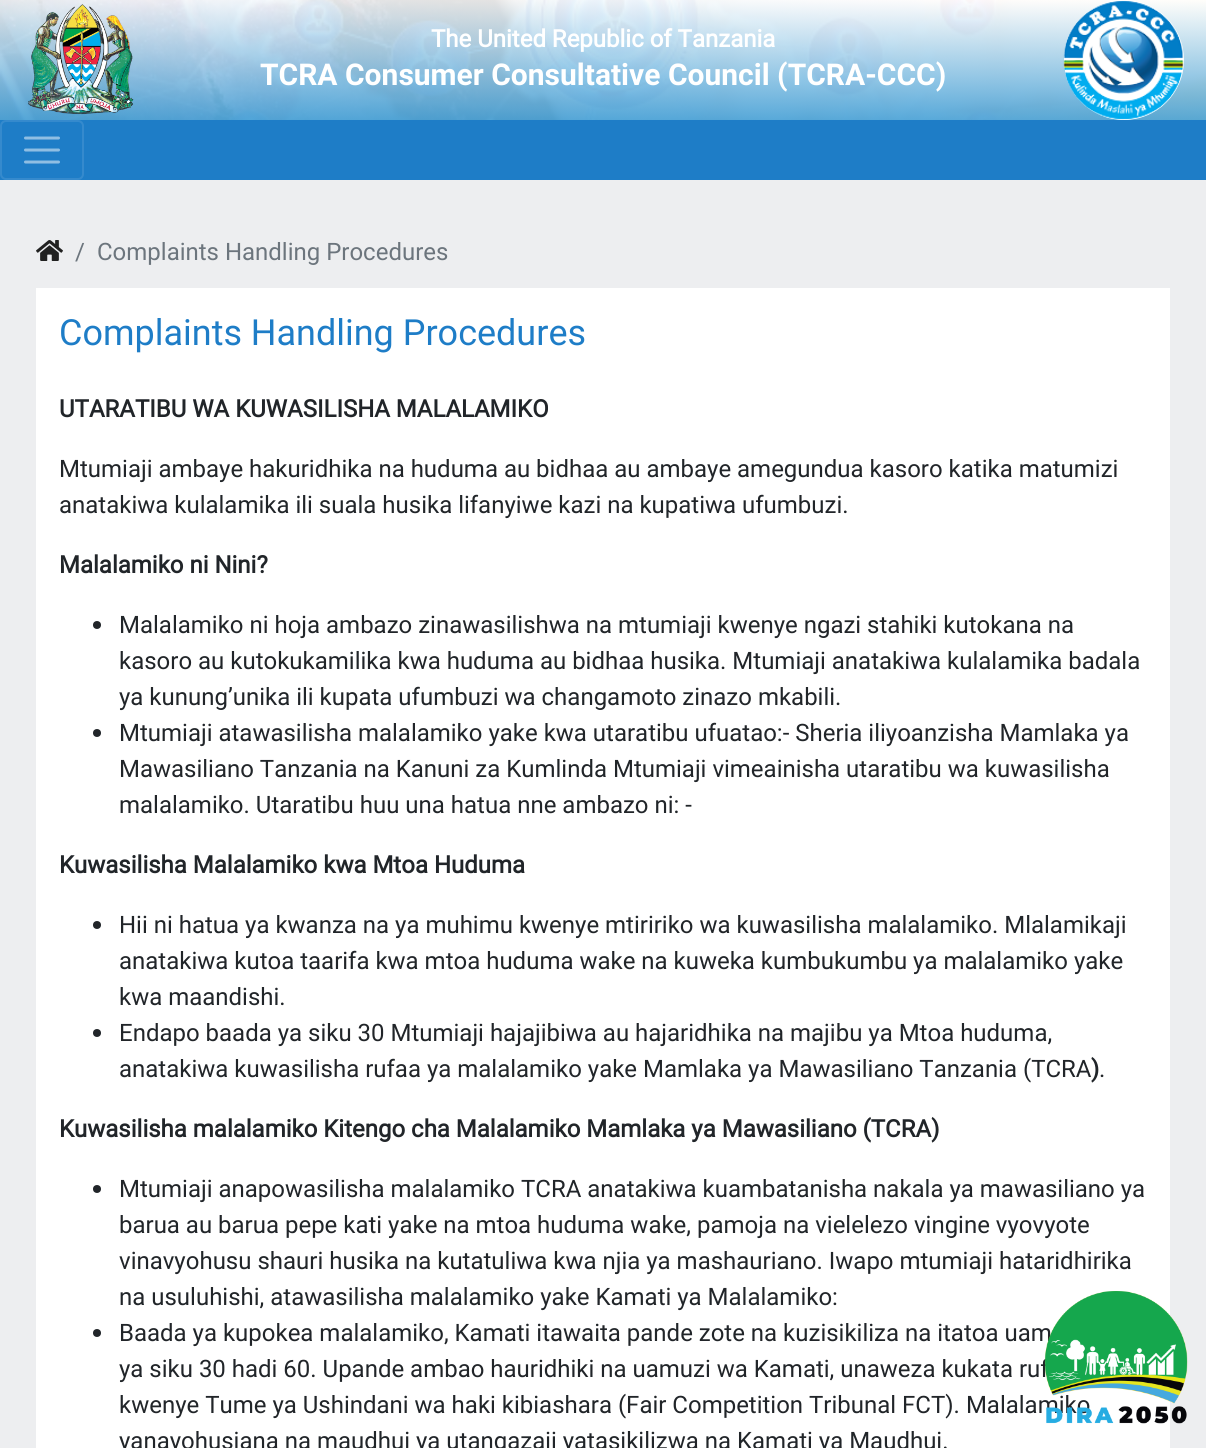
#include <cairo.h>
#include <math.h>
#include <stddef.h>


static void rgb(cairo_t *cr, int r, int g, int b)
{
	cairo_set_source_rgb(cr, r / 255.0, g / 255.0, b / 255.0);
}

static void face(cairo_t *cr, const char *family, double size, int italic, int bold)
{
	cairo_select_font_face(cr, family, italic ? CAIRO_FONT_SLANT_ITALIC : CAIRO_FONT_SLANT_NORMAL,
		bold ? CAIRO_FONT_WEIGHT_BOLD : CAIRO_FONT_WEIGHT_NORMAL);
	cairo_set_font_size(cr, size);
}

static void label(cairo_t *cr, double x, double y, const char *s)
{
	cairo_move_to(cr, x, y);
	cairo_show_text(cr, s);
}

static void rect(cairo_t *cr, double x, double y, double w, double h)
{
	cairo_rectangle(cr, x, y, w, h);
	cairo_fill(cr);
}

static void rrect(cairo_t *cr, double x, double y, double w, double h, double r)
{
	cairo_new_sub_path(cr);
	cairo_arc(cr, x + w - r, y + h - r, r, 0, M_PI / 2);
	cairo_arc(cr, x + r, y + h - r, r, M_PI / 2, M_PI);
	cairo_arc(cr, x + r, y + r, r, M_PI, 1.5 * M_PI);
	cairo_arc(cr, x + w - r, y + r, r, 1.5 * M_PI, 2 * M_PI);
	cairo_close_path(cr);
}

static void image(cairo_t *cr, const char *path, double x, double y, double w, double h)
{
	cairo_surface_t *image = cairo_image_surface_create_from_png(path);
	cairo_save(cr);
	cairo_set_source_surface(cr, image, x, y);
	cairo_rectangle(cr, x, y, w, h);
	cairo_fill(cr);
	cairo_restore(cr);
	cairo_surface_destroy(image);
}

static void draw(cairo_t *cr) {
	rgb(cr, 237, 238, 240);
	cairo_paint(cr);
	image(cr, "image0.png", 0, 0, 1206, 120);
	image(cr, "image1.png", 28, 4, 106, 111);
	face(cr, "Roboto", 24, 0, 1);
	rgb(cr, 255, 255, 255);
	label(cr, 431, 47, "The United Republic of Tanzania");
	face(cr, "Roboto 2", 30, 0, 1);
	label(cr, 260, 85, "TCRA Consumer Consultative Council (TCRA-CCC)");
	cairo_new_path(cr);
	cairo_arc(cr, 1124, 60, 60, 0, 2 * M_PI);
	cairo_fill(cr);
	image(cr, "image2.png", 1063, 0, 121, 120);
	rgb(cr, 30, 125, 199);
	rect(cr, 0, 120, 1206, 60);
	rrect(cr, 1, 121, 82, 58, 5);
	rgb(cr, 53, 138, 205);
	cairo_stroke(cr);
	cairo_new_path(cr);
	cairo_move_to(cr, 25.5, 138);
	cairo_line_to(cr, 58.5, 138);
	cairo_move_to(cr, 25.5, 150);
	cairo_line_to(cr, 58.5, 150);
	cairo_move_to(cr, 25.5, 162);
	cairo_line_to(cr, 58.5, 162);
	rgb(cr, 143, 190, 227);
	cairo_set_line_width(cr, 3);
	cairo_set_line_cap(cr, CAIRO_LINE_CAP_ROUND);
	cairo_stroke(cr);
	image(cr, "image3.png", 36, 240, 27, 21);
	face(cr, "Roboto", 24, 0, 0);
	rgb(cr, 108, 117, 125);
	label(cr, 75, 260, "/");
	label(cr, 97, 260, "Complaints Handling Procedures");
	rgb(cr, 255, 255, 255);
	rect(cr, 36, 288, 1134, 1160);
	face(cr, "Roboto", 36, 0, 0);
	rgb(cr, 30, 125, 199);
	label(cr, 59, 345, "Complaints Handling Procedures");
	face(cr, "Roboto", 24, 0, 1);
	rgb(cr, 33, 37, 41);
	label(cr, 59, 417, "UTARATIBU WA KUWASILISHA MALALAMIKO");
	face(cr, "Roboto", 24, 0, 0);
	label(cr, 59, 477, "Mtumiaji ambaye hakuridhika na huduma au bidhaa au ambaye amegundua kasoro katika matumizi");
	label(cr, 59, 513, "anatakiwa kulalamika ili suala husika lifanyiwe kazi na kupatiwa ufumbuzi.");
	face(cr, "Roboto", 24, 0, 1);
	label(cr, 59, 573, "Malalamiko ni Nini?");
	cairo_new_path(cr);
	cairo_arc(cr, 97, 625, 4, 0, 2 * M_PI);
	cairo_fill(cr);
	face(cr, "Roboto", 24, 0, 0);
	label(cr, 119, 633, "Malalamiko ni hoja ambazo zinawasilishwa na mtumiaji kwenye ngazi stahiki kutokana na");
	label(cr, 119, 669, "kasoro au kutokukamilika kwa huduma au bidhaa husika. Mtumiaji anatakiwa kulalamika badala");
	label(cr, 119, 705, "ya kunung’unika ili kupata ufumbuzi wa changamoto zinazo mkabili.");
	cairo_new_path(cr);
	cairo_arc(cr, 97, 733, 4, 0, 2 * M_PI);
	cairo_fill(cr);
	label(cr, 119, 741, "Mtumiaji atawasilisha malalamiko yake kwa utaratibu ufuatao:- Sheria iliyoanzisha Mamlaka ya");
	label(cr, 119, 777, "Mawasiliano Tanzania na Kanuni za Kumlinda Mtumiaji vimeainisha utaratibu wa kuwasilisha");
	label(cr, 119, 813, "malalamiko. Utaratibu huu una hatua nne ambazo ni: -");
	face(cr, "Roboto", 24, 0, 1);
	label(cr, 59, 873, "Kuwasilisha Malalamiko kwa Mtoa Huduma");
	cairo_new_path(cr);
	cairo_arc(cr, 97, 925, 4, 0, 2 * M_PI);
	cairo_fill(cr);
	face(cr, "Roboto", 24, 0, 0);
	label(cr, 119, 933, "Hii ni hatua ya kwanza na ya muhimu kwenye mtiririko wa kuwasilisha malalamiko. Mlalamikaji");
	label(cr, 119, 969, "anatakiwa kutoa taarifa kwa mtoa huduma wake na kuweka kumbukumbu ya malalamiko yake");
	label(cr, 119, 1005, "kwa maandishi.");
	cairo_new_path(cr);
	cairo_arc(cr, 97, 1033, 4, 0, 2 * M_PI);
	cairo_fill(cr);
	label(cr, 119, 1041, "Endapo baada ya siku 30 Mtumiaji hajajibiwa au hajaridhika na majibu ya Mtoa huduma,");
	label(cr, 119, 1077, "anatakiwa kuwasilisha rufaa ya malalamiko yake Mamlaka ya Mawasiliano Tanzania (TCRA");
	face(cr, "Roboto", 24, 0, 1);
	label(cr, 1091, 1077, ")");
	face(cr, "Roboto", 24, 0, 0);
	label(cr, 1099, 1077, ".");
	face(cr, "Roboto", 24, 0, 1);
	label(cr, 59, 1137, "Kuwasilisha malalamiko Kitengo cha Malalamiko Mamlaka ya Mawasiliano (TCRA)");
	cairo_new_path(cr);
	cairo_arc(cr, 97, 1189, 4, 0, 2 * M_PI);
	cairo_fill(cr);
	face(cr, "Roboto", 24, 0, 0);
	label(cr, 119, 1197, "Mtumiaji anapowasilisha malalamiko TCRA anatakiwa kuambatanisha nakala ya mawasiliano ya");
	label(cr, 119, 1233, "barua au barua pepe kati yake na mtoa huduma wake, pamoja na vielelezo vingine vyovyote");
	label(cr, 119, 1269, "vinavyohusu shauri husika na kutatuliwa kwa njia ya mashauriano. Iwapo mtumiaji hataridhirika");
	label(cr, 119, 1305, "na usuluhishi, atawasilisha malalamiko yake Kamati ya Malalamiko:");
	cairo_new_path(cr);
	cairo_arc(cr, 97, 1333, 4, 0, 2 * M_PI);
	cairo_fill(cr);
	label(cr, 119, 1341, "Baada ya kupokea malalamiko, Kamati itawaita pande zote na kuzisikiliza na itatoa uam");
	label(cr, 119, 1377, "ya siku 30 hadi 60. Upande ambao hauridhiki na uamuzi wa Kamati, unaweza kukata ruf");
	label(cr, 119, 1413, "kwenye Tume ya Ushindani wa haki kibiashara (Fair Competition Tribunal FCT). Malalamiko");
	label(cr, 119, 1449, "yanayohusiana na maudhui ya utangazaji yatasikilizwa na Kamati ya Maudhui.");
	image(cr, "image4.png", 1044, 1291, 144, 133);
}

int main(void) {
	cairo_surface_t *surface = cairo_image_surface_create(CAIRO_FORMAT_RGB24, 1206, 1448);
	cairo_t *cr = cairo_create(surface);
	cairo_font_options_t *options = cairo_font_options_create();
	cairo_font_options_set_hint_metrics(options, CAIRO_HINT_METRICS_OFF);
	cairo_font_options_set_hint_style(options, CAIRO_HINT_STYLE_NONE);
	cairo_set_font_options(cr, options);
	cairo_set_miter_limit(cr, 4);
	draw(cr);
	cairo_surface_write_to_png(surface, "render.png");
	cairo_font_options_destroy(options);
	cairo_destroy(cr);
	cairo_surface_destroy(surface);
	return 0;
}
